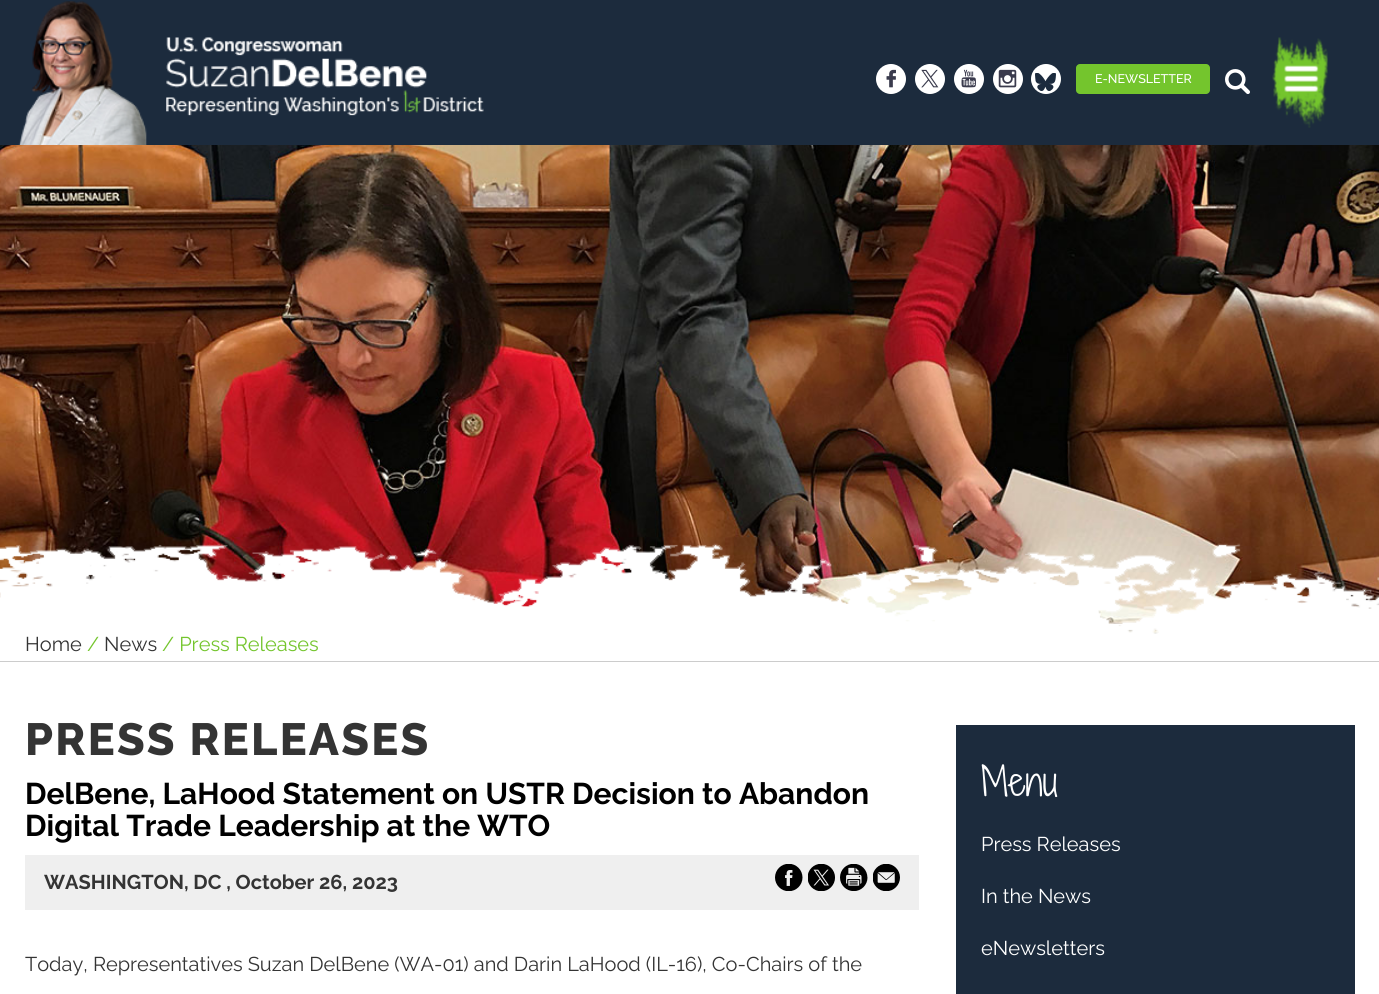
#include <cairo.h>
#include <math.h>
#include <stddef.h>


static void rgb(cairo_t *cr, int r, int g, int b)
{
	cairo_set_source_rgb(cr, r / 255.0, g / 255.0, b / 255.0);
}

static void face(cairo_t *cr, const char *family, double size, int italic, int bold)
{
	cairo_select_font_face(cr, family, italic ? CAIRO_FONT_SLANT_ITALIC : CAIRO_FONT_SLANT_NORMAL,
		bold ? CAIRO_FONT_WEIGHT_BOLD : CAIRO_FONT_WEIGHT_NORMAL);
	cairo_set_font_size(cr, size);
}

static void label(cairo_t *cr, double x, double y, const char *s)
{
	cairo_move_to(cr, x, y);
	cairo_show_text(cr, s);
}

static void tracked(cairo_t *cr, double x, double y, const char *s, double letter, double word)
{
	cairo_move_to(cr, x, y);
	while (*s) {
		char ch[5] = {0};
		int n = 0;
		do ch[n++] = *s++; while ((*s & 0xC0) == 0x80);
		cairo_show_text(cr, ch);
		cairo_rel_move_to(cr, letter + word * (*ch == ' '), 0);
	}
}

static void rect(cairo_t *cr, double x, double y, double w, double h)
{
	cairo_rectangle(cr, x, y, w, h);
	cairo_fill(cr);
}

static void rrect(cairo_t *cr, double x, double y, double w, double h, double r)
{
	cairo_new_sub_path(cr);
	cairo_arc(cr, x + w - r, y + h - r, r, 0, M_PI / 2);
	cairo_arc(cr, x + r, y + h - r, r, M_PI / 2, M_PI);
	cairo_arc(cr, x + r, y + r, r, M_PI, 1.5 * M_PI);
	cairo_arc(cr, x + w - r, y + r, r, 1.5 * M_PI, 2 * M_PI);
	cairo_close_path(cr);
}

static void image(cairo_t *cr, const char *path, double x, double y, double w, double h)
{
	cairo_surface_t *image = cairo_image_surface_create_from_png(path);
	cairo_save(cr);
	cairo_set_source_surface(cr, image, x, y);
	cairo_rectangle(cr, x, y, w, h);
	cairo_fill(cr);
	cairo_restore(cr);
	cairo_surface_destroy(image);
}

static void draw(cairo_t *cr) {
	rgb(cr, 255, 255, 255);
	cairo_paint(cr);
	rgb(cr, 28, 43, 61);
	rect(cr, 0, 0, 1379, 145);
	image(cr, "image0.png", 18, 1, 466, 144);
	rgb(cr, 255, 255, 255);
	cairo_arc(cr, 891, 79, 15, 0, 2 * M_PI);
	cairo_fill(cr);
	image(cr, "image1.png", 886, 69, 10, 19);
	cairo_arc(cr, 930, 79, 15, 0, 2 * M_PI);
	cairo_fill(cr);
	image(cr, "image2.png", 921, 69, 18, 19);
	cairo_arc(cr, 969, 79, 15, 0, 2 * M_PI);
	cairo_fill(cr);
	image(cr, "image3.png", 961, 69, 15, 19);
	cairo_arc(cr, 1008, 79, 15, 0, 2 * M_PI);
	cairo_fill(cr);
	image(cr, "image4.png", 998, 69, 19, 19);
	cairo_arc(cr, 1046, 79, 15, 0, 2 * M_PI);
	cairo_fill(cr);
	image(cr, "image5.png", 1035, 73, 21, 18);
	rgb(cr, 116, 197, 45);
	rrect(cr, 1076, 64, 134, 30, 4);
	cairo_fill(cr);
	face(cr, "Raleway Medium", 12.5, 0, 0);
	rgb(cr, 255, 255, 255);
	label(cr, 1095, 83, "E-NEWSLETTER");
	image(cr, "image6.png", 1225, 69, 25, 25);
	image(cr, "image7.png", 1272, 37, 56, 91);
	rgb(cr, 204, 204, 204);
	rect(cr, 0, 661, 1379, 1);
	image(cr, "image8.png", 0, 145, 1379, 489);
	image(cr, "image9.png", 0, 543, 1379, 107);
	face(cr, "Raleway", 20, 0, 0);
	rgb(cr, 52, 52, 52);
	label(cr, 25, 651, "Home");
	rgb(cr, 116, 197, 45);
	label(cr, 87, 651, "/");
	rgb(cr, 52, 52, 52);
	label(cr, 104, 651, "News");
	rgb(cr, 116, 197, 45);
	label(cr, 162, 651, "/ Press Releases");
	face(cr, "Raleway ExtraBold", 45, 0, 0);
	rgb(cr, 52, 52, 52);
	tracked(cr, 25, 755, "PRESS RELEASES", 2.25, 0);
	face(cr, "Raleway", 30, 0, 1);
	rgb(cr, 0, 0, 0);
	label(cr, 25, 804, "DelBene, LaHood Statement on USTR Decision to Abandon");
	label(cr, 25, 836, "Digital Trade Leadership at the WTO");
	rgb(cr, 239, 239, 239);
	rect(cr, 25, 855, 894, 55);
	face(cr, "Raleway", 20, 0, 1);
	rgb(cr, 52, 52, 52);
	label(cr, 44, 889, "WASHINGTON, DC , October 26, 2023");
	image(cr, "image10.png", 775, 864, 28, 27);
	image(cr, "image11.png", 808, 864, 27, 27);
	image(cr, "image12.png", 840, 864, 28, 27);
	image(cr, "image13.png", 873, 864, 27, 27);
	face(cr, "Raleway", 20, 0, 0);
	label(cr, 25, 971, "Today, Representatives Suzan DelBene (WA-01) and Darin LaHood (IL-16), Co-Chairs of the");
	rgb(cr, 28, 43, 61);
	rect(cr, 956, 725, 399, 269);
	face(cr, "Shadows Into Light Two Light", 37.5, 0, 0);
	rgb(cr, 255, 255, 255);
	label(cr, 981, 796, "Menu");
	face(cr, "Raleway", 20, 0, 0);
	label(cr, 981, 851, "Press Releases");
	label(cr, 981, 903, "In the News");
	label(cr, 981, 955, "eNewsletters");
}

int main(void) {
	cairo_surface_t *surface = cairo_image_surface_create(CAIRO_FORMAT_RGB24, 1379, 994);
	cairo_t *cr = cairo_create(surface);
	cairo_font_options_t *options = cairo_font_options_create();
	cairo_font_options_set_hint_metrics(options, CAIRO_HINT_METRICS_OFF);
	cairo_font_options_set_hint_style(options, CAIRO_HINT_STYLE_NONE);
	cairo_set_font_options(cr, options);
	cairo_set_miter_limit(cr, 4);
	draw(cr);
	cairo_surface_write_to_png(surface, "render.png");
	cairo_font_options_destroy(options);
	cairo_destroy(cr);
	cairo_surface_destroy(surface);
	return 0;
}
